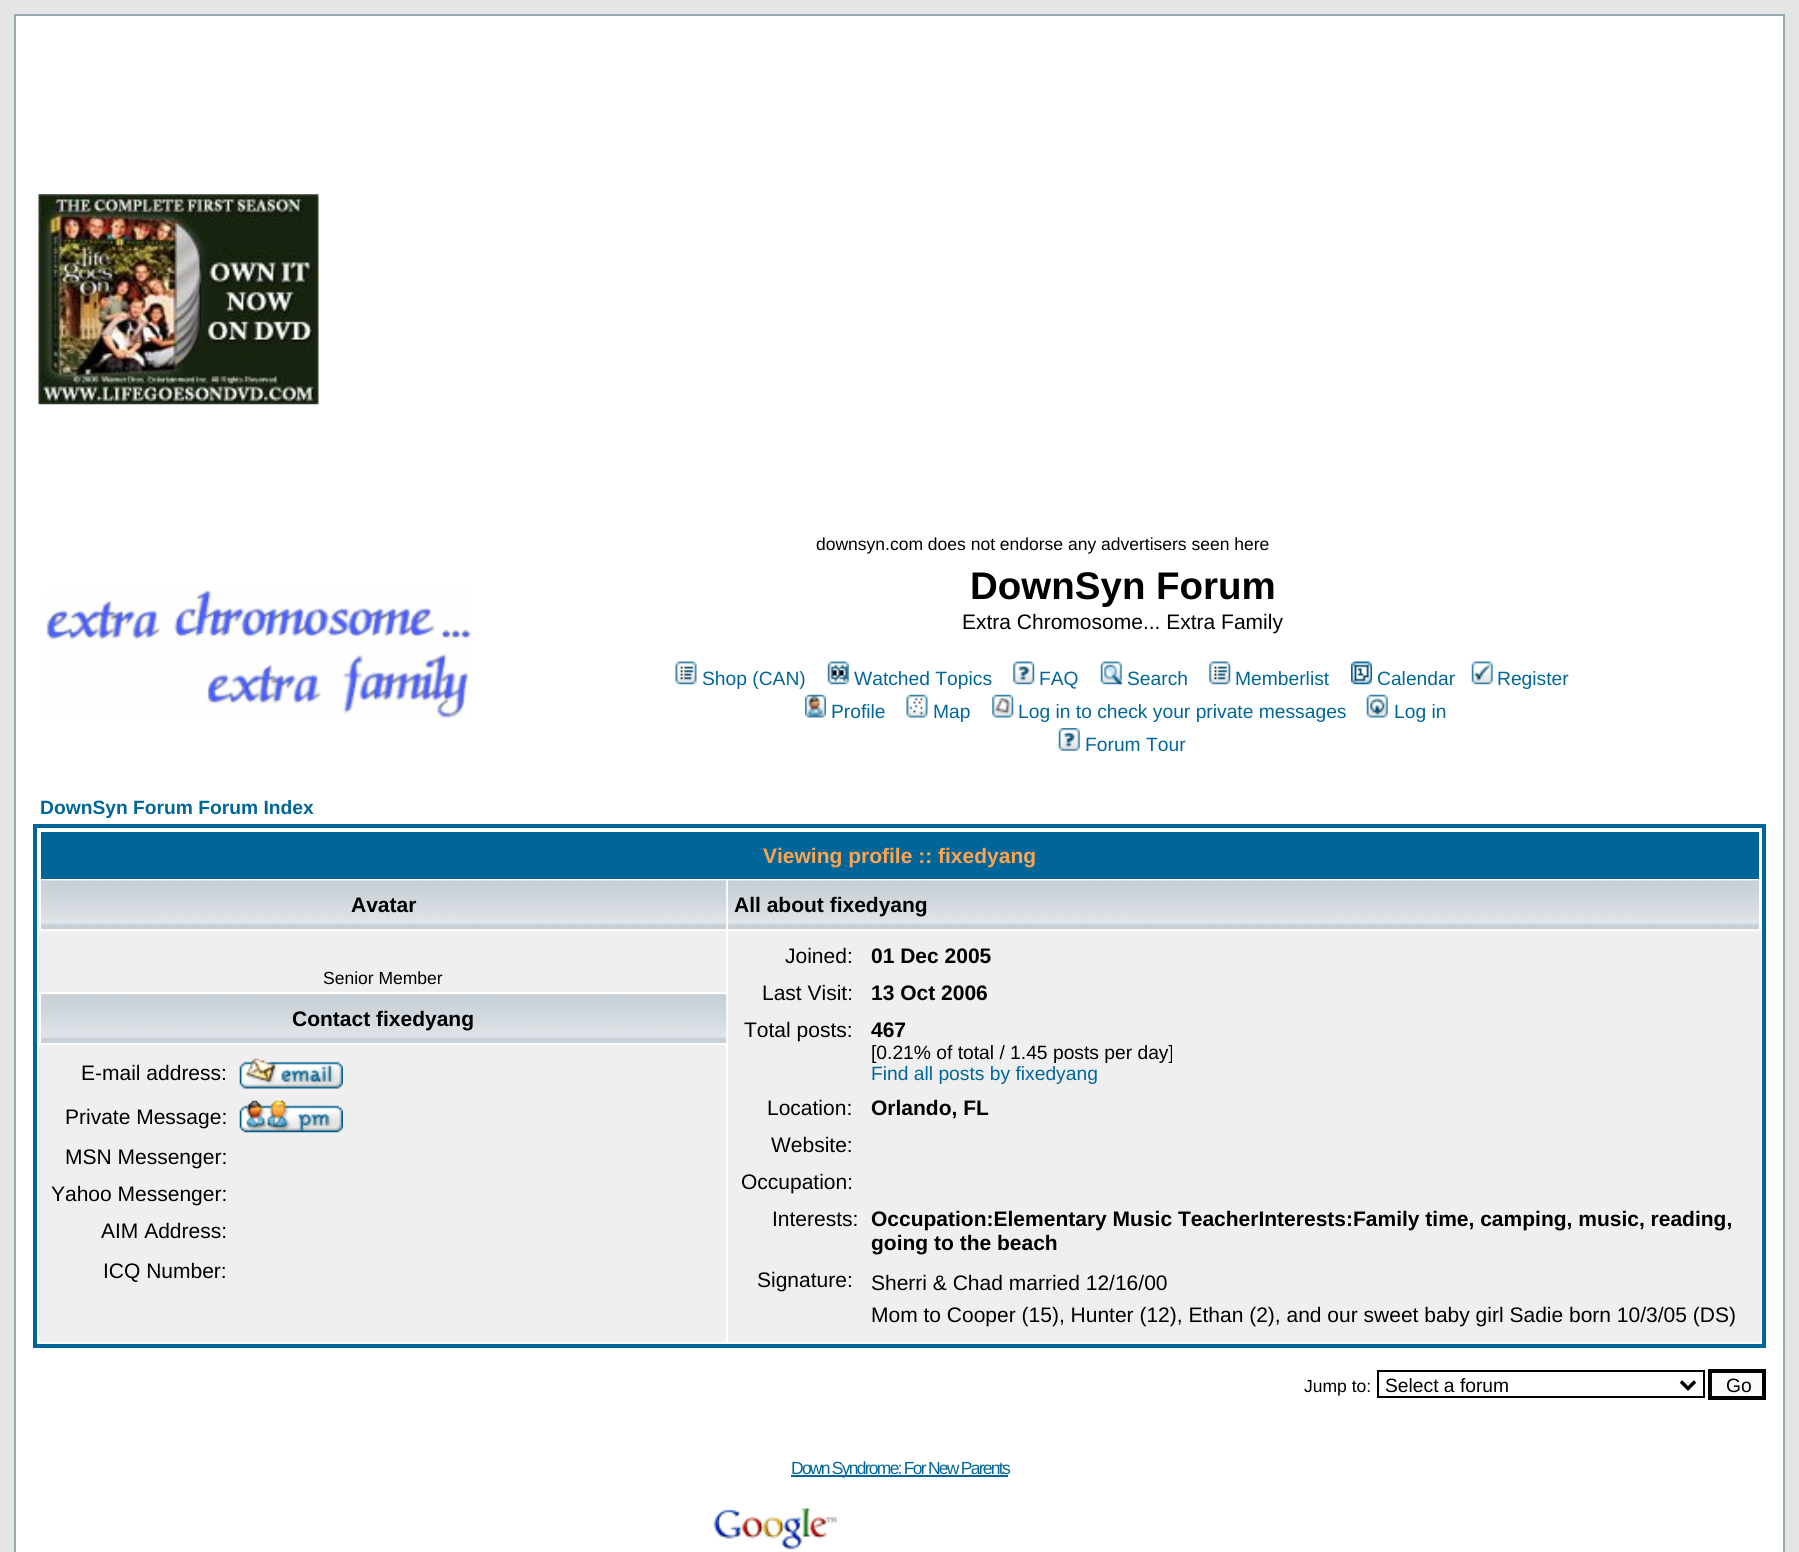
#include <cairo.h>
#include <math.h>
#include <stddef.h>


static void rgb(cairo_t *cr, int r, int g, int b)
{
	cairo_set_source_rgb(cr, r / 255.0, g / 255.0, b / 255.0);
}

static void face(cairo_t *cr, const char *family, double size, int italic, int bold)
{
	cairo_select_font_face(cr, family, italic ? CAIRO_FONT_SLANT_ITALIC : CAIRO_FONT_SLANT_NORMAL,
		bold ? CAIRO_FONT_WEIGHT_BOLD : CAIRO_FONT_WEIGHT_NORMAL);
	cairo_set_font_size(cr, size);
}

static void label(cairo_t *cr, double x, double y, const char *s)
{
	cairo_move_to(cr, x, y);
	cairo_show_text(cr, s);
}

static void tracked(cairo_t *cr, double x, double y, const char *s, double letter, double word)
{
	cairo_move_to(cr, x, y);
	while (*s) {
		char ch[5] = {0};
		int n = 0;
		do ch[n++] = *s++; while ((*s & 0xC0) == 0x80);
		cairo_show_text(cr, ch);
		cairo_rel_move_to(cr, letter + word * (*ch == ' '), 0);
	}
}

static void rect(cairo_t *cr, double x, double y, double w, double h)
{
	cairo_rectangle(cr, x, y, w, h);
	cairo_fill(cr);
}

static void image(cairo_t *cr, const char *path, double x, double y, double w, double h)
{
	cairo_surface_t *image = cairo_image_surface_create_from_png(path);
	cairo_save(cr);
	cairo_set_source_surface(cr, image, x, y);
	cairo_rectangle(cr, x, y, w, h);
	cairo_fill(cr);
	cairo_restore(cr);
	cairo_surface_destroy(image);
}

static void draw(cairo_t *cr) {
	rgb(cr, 229, 229, 229);
	cairo_paint(cr);
	rgb(cr, 255, 255, 255);
	cairo_rectangle(cr, 15, 15, 1769, 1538);
	cairo_fill_preserve(cr);
	rgb(cr, 152, 170, 177);
	cairo_stroke(cr);
	image(cr, "image0.png", 38, 194, 281, 211);
	face(cr, "Liberation Sans", 17.5, 0, 0);
	rgb(cr, 0, 0, 0);
	label(cr, 816, 550, "downsyn.com does not endorse any advertisers seen here");
	image(cr, "image1.png", 46, 589, 426, 130);
	face(cr, "Liberation Sans", 38.5, 0, 1);
	label(cr, 970, 599, "DownSyn Forum");
	face(cr, "Liberation Sans", 21, 0, 0);
	label(cr, 962, 629, "Extra Chromosome... Extra Family");
	image(cr, "image2.png", 675, 661, 22, 24);
	face(cr, "Liberation Sans", 19.25, 0, 0);
	rgb(cr, 0, 102, 153);
	label(cr, 702, 685, "Shop (CAN)");
	image(cr, "image3.png", 827, 661, 22, 24);
	label(cr, 854, 685, "Watched Topics");
	image(cr, "image4.png", 1013, 661, 22, 24);
	label(cr, 1039, 685, "FAQ");
	image(cr, "image5.png", 1100, 661, 22, 24);
	label(cr, 1127, 685, "Search");
	image(cr, "image6.png", 1209, 661, 22, 24);
	label(cr, 1235, 685, "Memberlist");
	image(cr, "image7.png", 1351, 661, 21, 24);
	label(cr, 1377, 685, "Calendar");
	image(cr, "image8.png", 1471, 661, 22, 24);
	label(cr, 1497, 685, "Register");
	image(cr, "image9.png", 805, 694, 21, 24);
	label(cr, 831, 718, "Profile");
	image(cr, "image10.png", 906, 694, 22, 24);
	label(cr, 933, 718, "Map");
	image(cr, "image11.png", 992, 694, 22, 24);
	label(cr, 1018, 718, "Log in to check your private messages");
	image(cr, "image12.png", 1366, 694, 22, 24);
	label(cr, 1394, 718, "Log in");
	image(cr, "image13.png", 1058, 728, 22, 23);
	label(cr, 1085, 751, "Forum Tour");
	face(cr, "Liberation Sans", 19.25, 0, 1);
	label(cr, 40, 814, "DownSyn Forum Forum Index");
	cairo_rectangle(cr, 35, 826, 1729, 520);
	cairo_set_line_width(cr, 4);
	cairo_stroke(cr);
	rect(cr, 41, 832, 1718, 47);
	face(cr, "Liberation Sans", 21, 0, 1);
	rgb(cr, 255, 163, 79);
	label(cr, 763, 863, "Viewing profile :: fixedyang");
	image(cr, "image14.png", 38, 880, 689, 50);
	rgb(cr, 255, 255, 255);
	rect(cr, 39, 880, 2, 49);
	rgb(cr, 0, 0, 0);
	label(cr, 351, 912, "Avatar");
	image(cr, "image15.png", 728, 880, 1033, 50);
	rgb(cr, 255, 255, 255);
	rect(cr, 1759, 880, 2, 49);
	rgb(cr, 0, 0, 0);
	label(cr, 734, 912, "All about fixedyang");
	rgb(cr, 239, 239, 239);
	rect(cr, 39, 931, 687, 61);
	face(cr, "Liberation Sans", 17.5, 0, 0);
	rgb(cr, 0, 0, 0);
	label(cr, 323, 984, "Senior Member");
	rgb(cr, 239, 239, 239);
	rect(cr, 728, 931, 1033, 411);
	face(cr, "Liberation Sans", 21, 0, 0);
	rgb(cr, 0, 0, 0);
	label(cr, 785, 963, "Joined:");
	face(cr, "Liberation Sans", 21, 0, 1);
	label(cr, 871, 963, "01 Dec 2005");
	face(cr, "Liberation Sans", 21, 0, 0);
	label(cr, 762, 1000, "Last Visit:");
	face(cr, "Liberation Sans", 21, 0, 1);
	label(cr, 871, 1000, "13 Oct 2006");
	face(cr, "Liberation Sans", 21, 0, 0);
	label(cr, 744, 1037, "Total posts:");
	face(cr, "Liberation Sans", 21, 0, 1);
	label(cr, 871, 1037, "467");
	face(cr, "Liberation Sans", 19.25, 0, 0);
	label(cr, 871, 1059, "[0.21% of total / 1.45 posts per day]");
	rgb(cr, 0, 102, 153);
	label(cr, 871, 1080, "Find all posts by fixedyang");
	face(cr, "Liberation Sans", 21, 0, 0);
	rgb(cr, 0, 0, 0);
	label(cr, 767, 1115, "Location:");
	face(cr, "Liberation Sans", 21, 0, 1);
	label(cr, 871, 1115, "Orlando, FL");
	face(cr, "Liberation Sans", 21, 0, 0);
	label(cr, 771, 1152, "Website:");
	label(cr, 741, 1189, "Occupation:");
	label(cr, 772, 1226, "Interests:");
	face(cr, "Liberation Sans", 21, 0, 1);
	label(cr, 871, 1226, "Occupation:Elementary Music TeacherInterests:Family time, camping, music, reading,");
	label(cr, 871, 1250, "going to the beach");
	face(cr, "Liberation Sans", 21, 0, 0);
	label(cr, 757, 1287, "Signature:");
	label(cr, 871, 1290, "Sherri & Chad married 12/16/00");
	label(cr, 871, 1322, "Mom to Cooper (15), Hunter (12), Ethan (2), and our sweet baby girl Sadie born 10/3/05 (DS)");
	image(cr, "image16.png", 38, 994, 689, 49);
	rgb(cr, 255, 255, 255);
	rect(cr, 39, 994, 2, 49);
	face(cr, "Liberation Sans", 21, 0, 1);
	rgb(cr, 0, 0, 0);
	label(cr, 292, 1026, "Contact fixedyang");
	rgb(cr, 239, 239, 239);
	rect(cr, 39, 1045, 687, 297);
	face(cr, "Liberation Sans", 21, 0, 0);
	rgb(cr, 0, 0, 0);
	label(cr, 81, 1080, "E-mail address:");
	image(cr, "image17.png", 239, 1058, 104, 31);
	label(cr, 65, 1124, "Private Message:");
	image(cr, "image18.png", 239, 1100, 104, 33);
	label(cr, 65, 1164, "MSN Messenger:");
	label(cr, 51, 1201, "Yahoo Messenger:");
	label(cr, 101, 1238, "AIM Address:");
	label(cr, 103, 1278, "ICQ Number:");
	face(cr, "Liberation Sans", 17.5, 0, 0);
	label(cr, 1304, 1392, "Jump to:");
	cairo_rectangle(cr, 1378, 1371, 326, 26);
	cairo_set_line_width(cr, 2);
	cairo_stroke(cr);
	cairo_new_path(cr);
	cairo_move_to(cr, 1681, 1381.5);
	cairo_line_to(cr, 1688, 1388.5);
	cairo_line_to(cr, 1695, 1381.5);
	cairo_set_line_width(cr, 3.5);
	cairo_stroke(cr);
	face(cr, "Liberation Sans", 19.25, 0, 0);
	label(cr, 1385, 1392, "Select a forum");
	rgb(cr, 250, 250, 250);
	cairo_rectangle(cr, 1710, 1371, 54, 27);
	cairo_fill_preserve(cr);
	rgb(cr, 0, 0, 0);
	cairo_set_line_width(cr, 4);
	cairo_stroke(cr);
	label(cr, 1726, 1392, "Go");
	rgb(cr, 0, 102, 153);
	rect(cr, 791, 1475, 217, 2);
	face(cr, "Liberation Sans", 17.5, 0, 0);
	tracked(cr, 791, 1474, "Down Syndrome: For New Parents", -1.75, 0);
	image(cr, "image19.png", 713, 1508, 124, 42);
}

int main(void) {
	cairo_surface_t *surface = cairo_image_surface_create(CAIRO_FORMAT_RGB24, 1799, 1552);
	cairo_t *cr = cairo_create(surface);
	cairo_font_options_t *options = cairo_font_options_create();
	cairo_font_options_set_hint_metrics(options, CAIRO_HINT_METRICS_OFF);
	cairo_font_options_set_hint_style(options, CAIRO_HINT_STYLE_NONE);
	cairo_set_font_options(cr, options);
	cairo_set_miter_limit(cr, 4);
	draw(cr);
	cairo_surface_write_to_png(surface, "render.png");
	cairo_font_options_destroy(options);
	cairo_destroy(cr);
	cairo_surface_destroy(surface);
	return 0;
}
